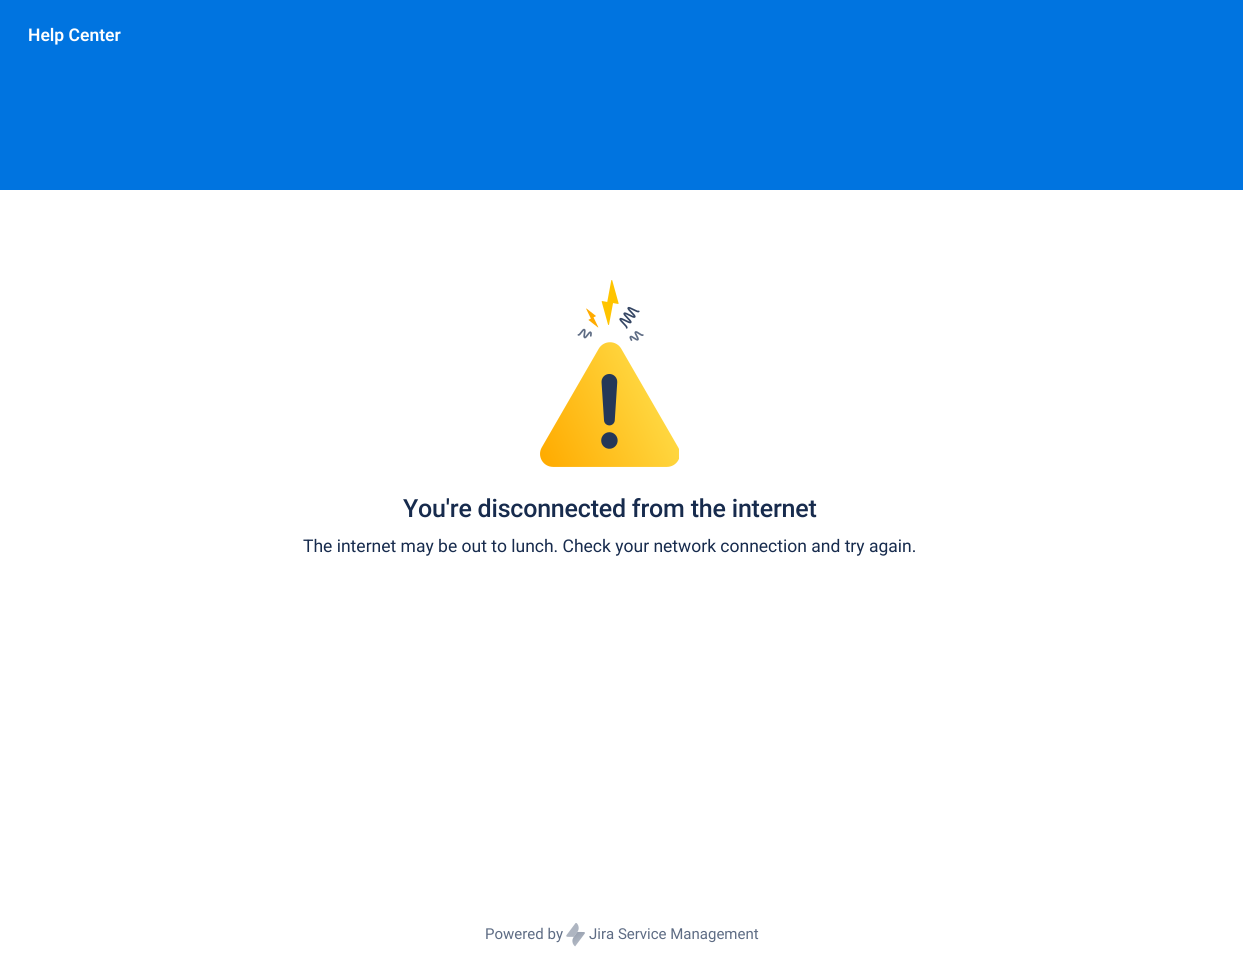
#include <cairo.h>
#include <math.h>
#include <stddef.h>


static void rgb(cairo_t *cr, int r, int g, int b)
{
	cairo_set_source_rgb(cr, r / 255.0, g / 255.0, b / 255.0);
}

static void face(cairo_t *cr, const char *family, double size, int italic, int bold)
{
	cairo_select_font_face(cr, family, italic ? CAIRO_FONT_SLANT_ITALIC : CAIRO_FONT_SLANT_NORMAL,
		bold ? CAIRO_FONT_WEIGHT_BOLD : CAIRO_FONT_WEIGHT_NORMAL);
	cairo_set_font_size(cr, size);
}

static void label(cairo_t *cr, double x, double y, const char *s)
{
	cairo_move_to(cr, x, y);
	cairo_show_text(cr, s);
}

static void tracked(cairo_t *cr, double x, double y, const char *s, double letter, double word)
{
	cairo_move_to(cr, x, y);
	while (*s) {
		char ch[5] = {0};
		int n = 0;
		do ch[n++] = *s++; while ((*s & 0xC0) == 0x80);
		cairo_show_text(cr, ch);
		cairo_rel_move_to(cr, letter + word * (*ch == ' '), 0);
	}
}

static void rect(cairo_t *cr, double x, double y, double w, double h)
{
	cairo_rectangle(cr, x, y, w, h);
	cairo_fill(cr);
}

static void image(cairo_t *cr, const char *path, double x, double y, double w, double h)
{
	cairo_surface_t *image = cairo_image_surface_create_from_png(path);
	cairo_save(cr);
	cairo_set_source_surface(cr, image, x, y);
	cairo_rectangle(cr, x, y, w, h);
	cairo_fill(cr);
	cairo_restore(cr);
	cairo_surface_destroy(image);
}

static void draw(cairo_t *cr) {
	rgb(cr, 255, 255, 255);
	cairo_paint(cr);
	rgb(cr, 0, 116, 224);
	rect(cr, 0, 0, 1243, 190);
	face(cr, "Roboto SemiBold", 17.5, 0, 0);
	rgb(cr, 255, 255, 255);
	label(cr, 28, 41, "Help Center");
	image(cr, "image0.png", 540, 280, 139, 187);
	face(cr, "Roboto Medium", 25, 0, 0);
	rgb(cr, 23, 43, 77);
	tracked(cr, 403, 517, "You're disconnected from the internet", -0.2, 0);
	face(cr, "Roboto", 17.5, 0, 0);
	label(cr, 303, 552, "The internet may be out to lunch. Check your network connection and try again.");
	face(cr, "Roboto", 15, 0, 0);
	rgb(cr, 94, 108, 132);
	label(cr, 485, 939, "Powered by");
	image(cr, "image1.png", 566, 923, 19, 24);
	label(cr, 589, 939, "Jira Service Management");
}

int main(void) {
	cairo_surface_t *surface = cairo_image_surface_create(CAIRO_FORMAT_RGB24, 1243, 974);
	cairo_t *cr = cairo_create(surface);
	cairo_font_options_t *options = cairo_font_options_create();
	cairo_font_options_set_hint_metrics(options, CAIRO_HINT_METRICS_OFF);
	cairo_font_options_set_hint_style(options, CAIRO_HINT_STYLE_NONE);
	cairo_set_font_options(cr, options);
	cairo_set_miter_limit(cr, 4);
	draw(cr);
	cairo_surface_write_to_png(surface, "render.png");
	cairo_font_options_destroy(options);
	cairo_destroy(cr);
	cairo_surface_destroy(surface);
	return 0;
}
